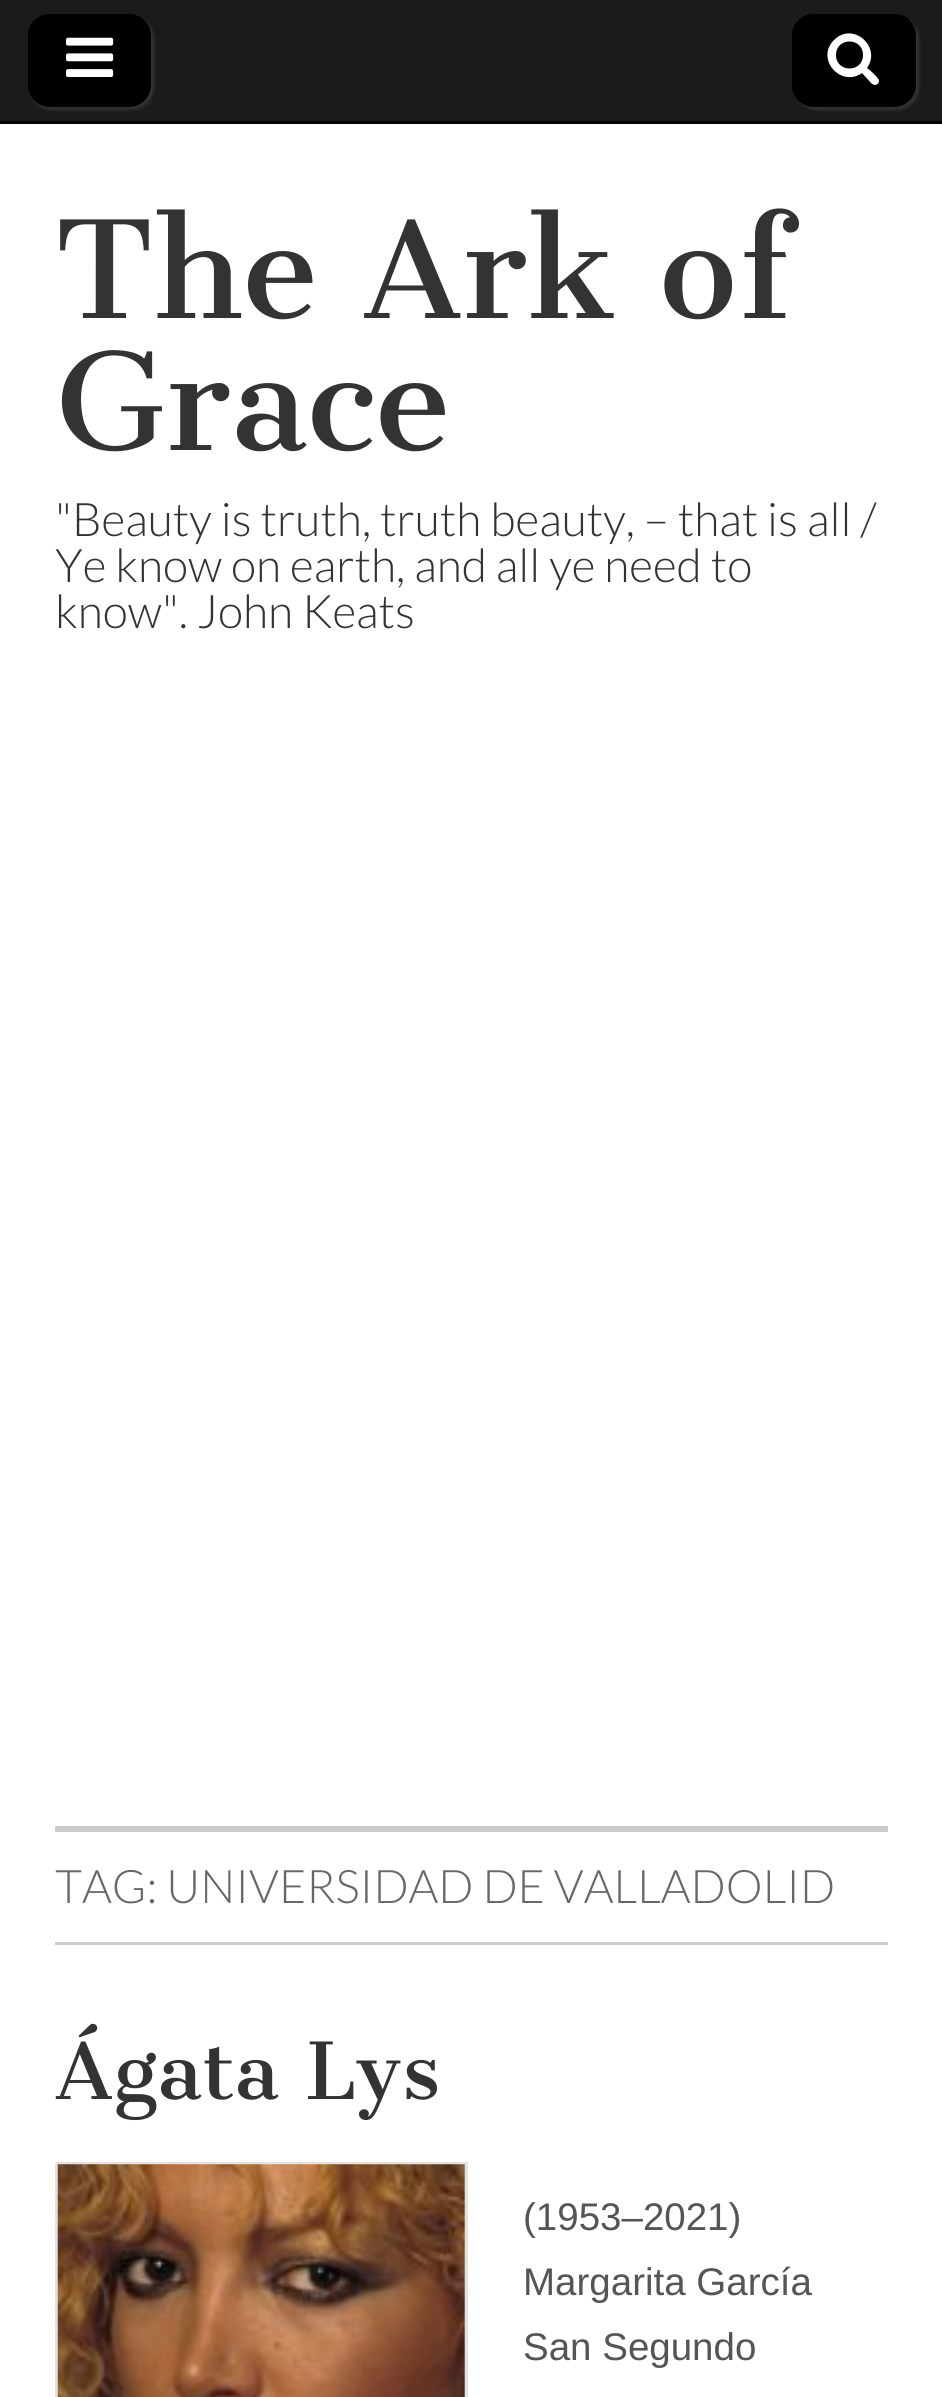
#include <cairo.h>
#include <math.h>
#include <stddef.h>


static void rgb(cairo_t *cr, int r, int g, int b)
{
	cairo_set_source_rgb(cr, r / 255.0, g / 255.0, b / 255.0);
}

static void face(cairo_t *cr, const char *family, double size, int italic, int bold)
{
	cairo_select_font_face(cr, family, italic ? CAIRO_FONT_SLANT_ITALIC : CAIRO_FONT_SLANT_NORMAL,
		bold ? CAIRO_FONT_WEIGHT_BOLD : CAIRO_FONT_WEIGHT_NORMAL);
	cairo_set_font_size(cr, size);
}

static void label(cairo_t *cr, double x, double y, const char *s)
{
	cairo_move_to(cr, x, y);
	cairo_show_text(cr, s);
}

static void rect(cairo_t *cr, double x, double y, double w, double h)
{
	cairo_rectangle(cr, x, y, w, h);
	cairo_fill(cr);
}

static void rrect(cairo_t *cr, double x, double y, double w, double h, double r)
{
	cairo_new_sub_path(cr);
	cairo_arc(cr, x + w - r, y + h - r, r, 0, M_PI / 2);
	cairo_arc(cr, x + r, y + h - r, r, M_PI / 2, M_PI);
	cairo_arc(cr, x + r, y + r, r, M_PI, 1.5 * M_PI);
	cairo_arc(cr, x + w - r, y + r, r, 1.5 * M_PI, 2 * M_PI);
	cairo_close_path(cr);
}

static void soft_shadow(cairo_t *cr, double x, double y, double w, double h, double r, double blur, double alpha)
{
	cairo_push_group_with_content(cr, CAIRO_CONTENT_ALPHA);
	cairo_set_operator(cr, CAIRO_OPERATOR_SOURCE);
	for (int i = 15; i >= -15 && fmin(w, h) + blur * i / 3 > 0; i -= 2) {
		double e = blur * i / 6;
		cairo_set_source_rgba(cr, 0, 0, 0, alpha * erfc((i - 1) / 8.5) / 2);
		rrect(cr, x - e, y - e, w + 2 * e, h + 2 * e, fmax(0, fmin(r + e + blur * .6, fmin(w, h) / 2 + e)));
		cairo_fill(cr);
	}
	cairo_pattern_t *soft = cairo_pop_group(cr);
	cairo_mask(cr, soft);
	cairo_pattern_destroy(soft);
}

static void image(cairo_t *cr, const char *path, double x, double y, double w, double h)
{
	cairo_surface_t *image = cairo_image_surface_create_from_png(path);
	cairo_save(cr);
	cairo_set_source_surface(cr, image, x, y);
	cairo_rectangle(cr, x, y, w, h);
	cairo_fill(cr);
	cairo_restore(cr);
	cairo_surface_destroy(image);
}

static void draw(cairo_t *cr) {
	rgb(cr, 255, 255, 255);
	cairo_paint(cr);
	rgb(cr, 27, 27, 27);
	rect(cr, 0, 0, 942, 121);
	rgb(cr, 0, 0, 0);
	rect(cr, 0, 121, 942, 3);
	rgb(cr, 51, 51, 51);
	soft_shadow(cr, 30, 17, 124, 93, 22, 1.5, 1);
	rgb(cr, 0, 0, 0);
	rrect(cr, 28, 14, 123, 93, 22);
	cairo_fill(cr);
	cairo_new_path(cr);
	cairo_move_to(cr, 52, 16);
	cairo_line_to(cr, 132, 16);
	cairo_curve_to(cr, 136, 16, 140, 17, 143, 19);
	cairo_curve_to(cr, 139, 16, 134, 14, 129, 14);
	cairo_line_to(cr, 50, 14);
	cairo_curve_to(cr, 38, 14, 28, 24, 28, 36);
	cairo_line_to(cr, 28, 85);
	cairo_curve_to(cr, 28, 90, 30, 95, 33, 99);
	cairo_curve_to(cr, 31, 96, 30, 92, 30, 88);
	cairo_line_to(cr, 30, 38);
	cairo_curve_to(cr, 30, 26, 40, 16, 52, 16);
	cairo_close_path(cr);
	cairo_fill(cr);
	image(cr, "image0.png", 66, 37, 48, 40);
	rgb(cr, 51, 51, 51);
	soft_shadow(cr, 795, 17, 124, 93, 22, 1.5, 1);
	rgb(cr, 0, 0, 0);
	rrect(cr, 792, 14, 124, 93, 22);
	cairo_fill(cr);
	cairo_new_path(cr);
	cairo_move_to(cr, 817, 16);
	cairo_line_to(cr, 896, 16);
	cairo_curve_to(cr, 901, 16, 906, 18, 910, 20);
	cairo_curve_to(cr, 906, 16, 900, 14, 894, 14);
	cairo_line_to(cr, 814, 14);
	cairo_curve_to(cr, 802, 14, 792, 24, 792, 36);
	cairo_line_to(cr, 792, 85);
	cairo_curve_to(cr, 792, 92, 795, 98, 800, 102);
	cairo_curve_to(cr, 797, 98, 795, 93, 795, 88);
	cairo_line_to(cr, 795, 38);
	cairo_curve_to(cr, 795, 26, 805, 16, 817, 16);
	cairo_close_path(cr);
	cairo_fill(cr);
	rgb(cr, 255, 255, 255);
	cairo_new_path(cr);
	cairo_move_to(cr, 863, 55);
	cairo_curve_to(cr, 863, 73, 836, 73, 836, 55);
	cairo_curve_to(cr, 836, 37, 863, 37, 863, 55);
	cairo_close_path(cr);
	cairo_move_to(cr, 879, 81);
	cairo_curve_to(cr, 879, 78, 870, 70, 867, 68);
	cairo_curve_to(cr, 882, 47, 853, 21, 834, 40);
	cairo_curve_to(cr, 815, 59, 841, 88, 862, 73);
	cairo_line_to(cr, 872, 84);
	cairo_curve_to(cr, 873, 84, 874, 85, 875, 85);
	cairo_curve_to(cr, 877, 85, 879, 83, 879, 81);
	cairo_close_path(cr);
	cairo_fill(cr);
	face(cr, "Cantata One", 132, 0, 0);
	rgb(cr, 51, 51, 51);
	label(cr, 55, 318, "The Ark of");
	label(cr, 55, 450, "Grace");
	face(cr, "Lato Light", 46.25, 0, 0);
	label(cr, 55, 536, "\"Beauty is truth, truth beauty, – that is all /");
	label(cr, 55, 582, "Ye know on earth, and all ye need to");
	label(cr, 55, 628, "know\". John Keats");
	rgb(cr, 204, 204, 204);
	rect(cr, 55, 1826, 833, 6);
	rect(cr, 55, 1942, 833, 3);
	rgb(cr, 102, 102, 102);
	label(cr, 55, 1903, "TAG: UNIVERSIDAD DE VALLADOLID");
	face(cr, "Cantata One", 77, 0, 0);
	rgb(cr, 51, 51, 51);
	label(cr, 55, 2099, "Ágata Lys");
	cairo_rectangle(cr, 56.5, 2163.5, 410, 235);
	rgb(cr, 226, 226, 226);
	cairo_set_line_width(cr, 3);
	cairo_stroke(cr);
	image(cr, "image1.png", 57, 2164, 408, 233);
	face(cr, "Liberation Sans", 38.5, 0, 0);
	rgb(cr, 85, 85, 85);
	label(cr, 523, 2230, "(1953–2021)");
	label(cr, 523, 2295, "Margarita García");
	label(cr, 523, 2360, "San Segundo");
}

int main(void) {
	cairo_surface_t *surface = cairo_image_surface_create(CAIRO_FORMAT_RGB24, 942, 2397);
	cairo_t *cr = cairo_create(surface);
	cairo_font_options_t *options = cairo_font_options_create();
	cairo_font_options_set_hint_metrics(options, CAIRO_HINT_METRICS_OFF);
	cairo_font_options_set_hint_style(options, CAIRO_HINT_STYLE_NONE);
	cairo_set_font_options(cr, options);
	cairo_set_miter_limit(cr, 4);
	draw(cr);
	cairo_surface_write_to_png(surface, "render.png");
	cairo_font_options_destroy(options);
	cairo_destroy(cr);
	cairo_surface_destroy(surface);
	return 0;
}
